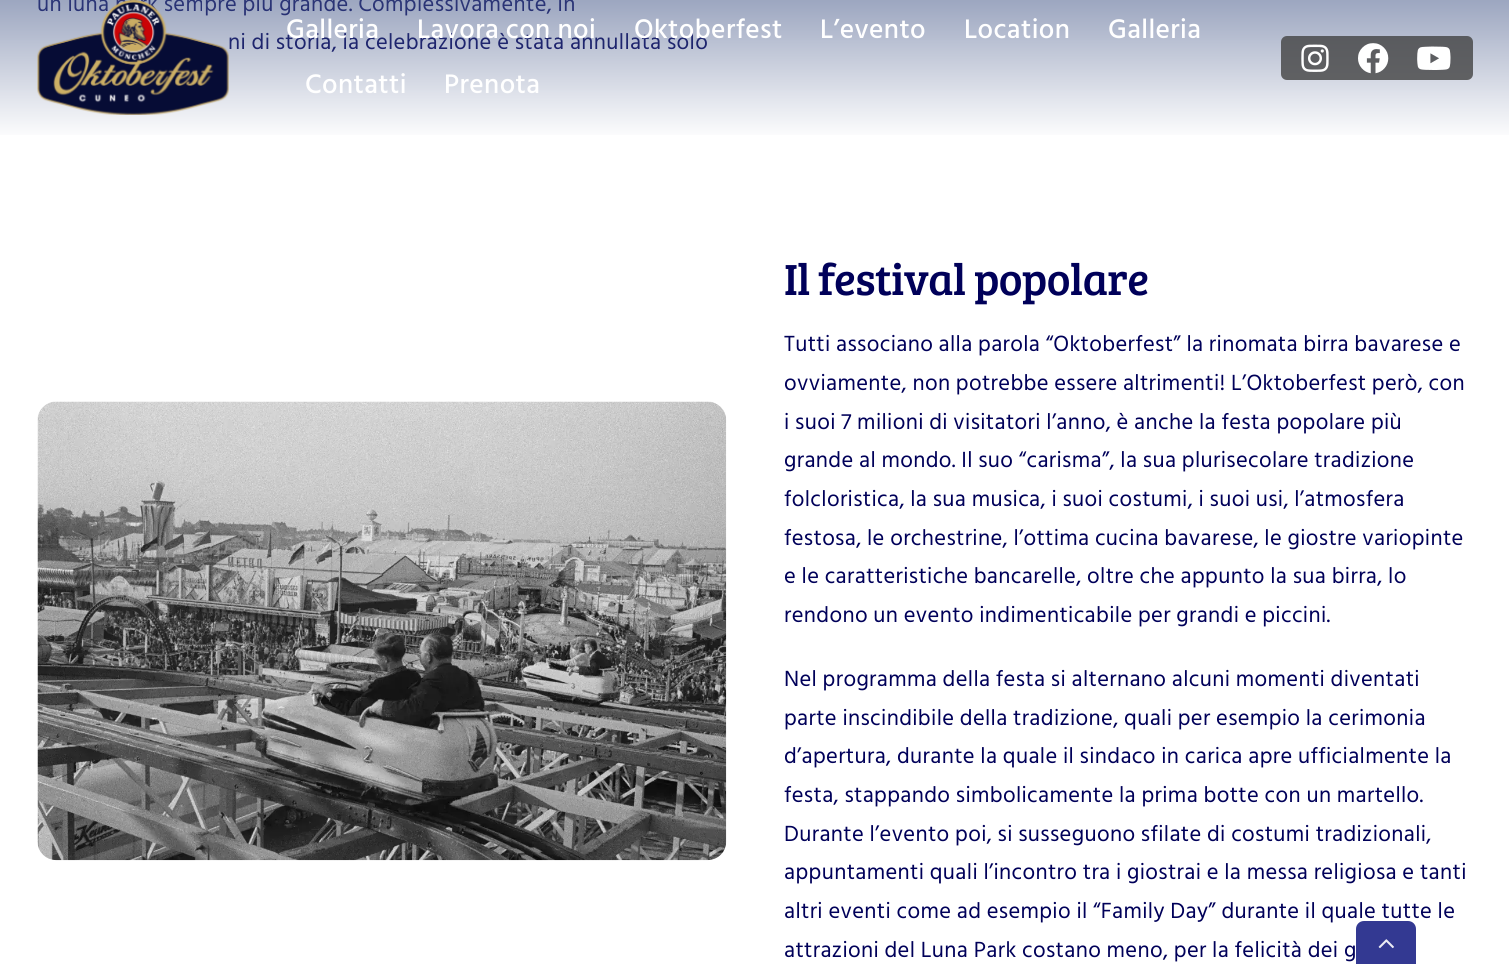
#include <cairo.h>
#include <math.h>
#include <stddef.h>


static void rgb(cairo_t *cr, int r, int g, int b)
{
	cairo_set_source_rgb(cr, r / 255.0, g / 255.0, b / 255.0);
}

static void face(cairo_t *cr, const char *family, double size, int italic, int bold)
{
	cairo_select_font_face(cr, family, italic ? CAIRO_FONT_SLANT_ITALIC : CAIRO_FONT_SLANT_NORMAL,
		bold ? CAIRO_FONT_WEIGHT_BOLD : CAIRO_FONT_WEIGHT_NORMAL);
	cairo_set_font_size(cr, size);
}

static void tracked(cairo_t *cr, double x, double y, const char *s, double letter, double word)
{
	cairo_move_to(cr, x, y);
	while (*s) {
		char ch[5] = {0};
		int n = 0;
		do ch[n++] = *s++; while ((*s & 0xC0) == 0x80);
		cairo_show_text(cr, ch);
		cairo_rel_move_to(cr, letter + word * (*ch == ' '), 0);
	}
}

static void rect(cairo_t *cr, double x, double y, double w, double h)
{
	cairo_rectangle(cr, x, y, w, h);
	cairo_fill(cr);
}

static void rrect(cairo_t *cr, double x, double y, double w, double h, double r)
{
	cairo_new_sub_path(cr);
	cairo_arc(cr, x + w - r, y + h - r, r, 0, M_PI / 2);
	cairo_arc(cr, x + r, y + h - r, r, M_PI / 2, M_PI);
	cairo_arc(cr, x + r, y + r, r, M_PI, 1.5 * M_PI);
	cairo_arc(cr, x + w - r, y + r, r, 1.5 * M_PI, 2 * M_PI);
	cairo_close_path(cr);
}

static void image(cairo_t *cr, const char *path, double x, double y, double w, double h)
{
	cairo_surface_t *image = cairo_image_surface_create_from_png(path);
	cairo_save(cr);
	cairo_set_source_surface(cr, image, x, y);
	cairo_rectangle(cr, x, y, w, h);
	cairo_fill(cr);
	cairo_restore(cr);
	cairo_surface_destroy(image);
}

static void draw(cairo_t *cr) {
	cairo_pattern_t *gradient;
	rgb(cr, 255, 255, 255);
	cairo_paint(cr);
	face(cr, "Hind Siliguri", 22.5, 0, 0);
	rgb(cr, 0, 0, 89);
	tracked(cr, 37, 11, "un luna park sempre più grande. Complessivamente, in", 0.35, 0);
	tracked(cr, 228, 49, "ni di storia, la celebrazione è stata annullata solo", 0.35, 0);
	image(cr, "image0.png", 37, 401, 690, 460);
	face(cr, "Bree Serif", 45, 0, 0);
	tracked(cr, 784, 295, "Il festival popolare", -0.7, 0);
	face(cr, "Hind Siliguri", 22.5, 0, 0);
	tracked(cr, 784, 351, "Tutti associano alla parola “Oktoberfest” la rinomata birra bavarese e", 0.35, 0);
	tracked(cr, 784, 390, "ovviamente, non potrebbe essere altrimenti! L’Oktoberfest però, con", 0.35, 0);
	tracked(cr, 784, 429, "i suoi 7 milioni di visitatori l’anno, è anche la festa popolare più", 0.35, 0);
	tracked(cr, 784, 467, "grande al mondo. Il suo “carisma”, la sua plurisecolare tradizione", 0.35, 0);
	tracked(cr, 784, 506, "folcloristica, la sua musica, i suoi costumi, i suoi usi, l’atmosfera", 0.35, 0);
	tracked(cr, 784, 545, "festosa, le orchestrine, l’ottima cucina bavarese, le giostre variopinte", 0.35, 0);
	tracked(cr, 784, 583, "e le caratteristiche bancarelle, oltre che appunto la sua birra, lo", 0.35, 0);
	tracked(cr, 784, 622, "rendono un evento indimenticabile per grandi e piccini.", 0.35, 0);
	tracked(cr, 784, 686, "Nel programma della festa si alternano alcuni momenti diventati", 0.35, 0);
	tracked(cr, 784, 725, "parte inscindibile della tradizione, quali per esempio la cerimonia", 0.35, 0);
	tracked(cr, 784, 763, "d’apertura, durante la quale il sindaco in carica apre ufficialmente la", 0.35, 0);
	tracked(cr, 784, 802, "festa, stappando simbolicamente la prima botte con un martello.", 0.35, 0);
	tracked(cr, 784, 841, "Durante l’evento poi, si susseguono sfilate di costumi tradizionali,", 0.35, 0);
	tracked(cr, 784, 879, "appuntamenti quali l’incontro tra i giostrai e la messa religiosa e tanti", 0.35, 0);
	tracked(cr, 784, 918, "altri eventi come ad esempio il “Family Day” durante il quale tutte le", 0.35, 0);
	tracked(cr, 784, 957, "attrazioni del Luna Park costano meno, per la felicità dei g", 0.35, 0);
	gradient = cairo_pattern_create_linear(755, 0, 755, 140);
	cairo_pattern_add_color_stop_rgba(gradient, 0, 0.306, 0.376, 0.557, 0.56);
	cairo_pattern_add_color_stop_rgba(gradient, 1, 0.306, 0.376, 0.557, 0);
	cairo_set_source(cr, gradient);
	cairo_pattern_destroy(gradient);
	rect(cr, 0, 0, 1509, 135);
	image(cr, "image1.png", 37, 0, 192, 115);
	face(cr, "Hind Siliguri Medium", 27.5, 0, 0);
	rgb(cr, 255, 255, 255);
	tracked(cr, 286, 38, "Galleria", 0.4, 0);
	tracked(cr, 417, 38, "Lavora con noi", 0.4, 0);
	tracked(cr, 634, 38, "Oktoberfest", 0.4, 0);
	tracked(cr, 820, 38, "L’evento", 0.4, 0);
	tracked(cr, 964, 38, "Location", 0.4, 0);
	tracked(cr, 1108, 38, "Galleria", 0.4, 0);
	tracked(cr, 305, 93, "Contatti", 0.4, 0);
	tracked(cr, 444, 93, "Prenota", 0.4, 0);
	cairo_set_source_rgba(cr, 0.259, 0.259, 0.259, 0.8);
	rrect(cr, 1281, 36, 192, 44, 6);
	cairo_fill(cr);
	image(cr, "image2.png", 1301, 44, 28, 28);
	image(cr, "image3.png", 1358, 43, 31, 31);
	image(cr, "image4.png", 1417, 46, 34, 24);
	cairo_set_source_rgba(cr, 0.114, 0.141, 0.529, 0.9);
	cairo_new_path(cr);
	cairo_move_to(cr, 1364, 921);
	cairo_line_to(cr, 1408, 921);
	cairo_curve_to(cr, 1412.5, 921, 1416, 924.5, 1416, 929);
	cairo_line_to(cr, 1416, 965);
	cairo_line_to(cr, 1356, 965);
	cairo_line_to(cr, 1356, 929);
	cairo_curve_to(cr, 1356, 924.5, 1359.5, 921, 1364, 921);
	cairo_close_path(cr);
	cairo_fill(cr);
	image(cr, "image5.png", 1378, 939, 16, 10);
}

int main(void) {
	cairo_surface_t *surface = cairo_image_surface_create(CAIRO_FORMAT_RGB24, 1509, 964);
	cairo_t *cr = cairo_create(surface);
	cairo_font_options_t *options = cairo_font_options_create();
	cairo_font_options_set_hint_metrics(options, CAIRO_HINT_METRICS_OFF);
	cairo_font_options_set_hint_style(options, CAIRO_HINT_STYLE_NONE);
	cairo_set_font_options(cr, options);
	cairo_set_miter_limit(cr, 4);
	draw(cr);
	cairo_surface_write_to_png(surface, "render.png");
	cairo_font_options_destroy(options);
	cairo_destroy(cr);
	cairo_surface_destroy(surface);
	return 0;
}
